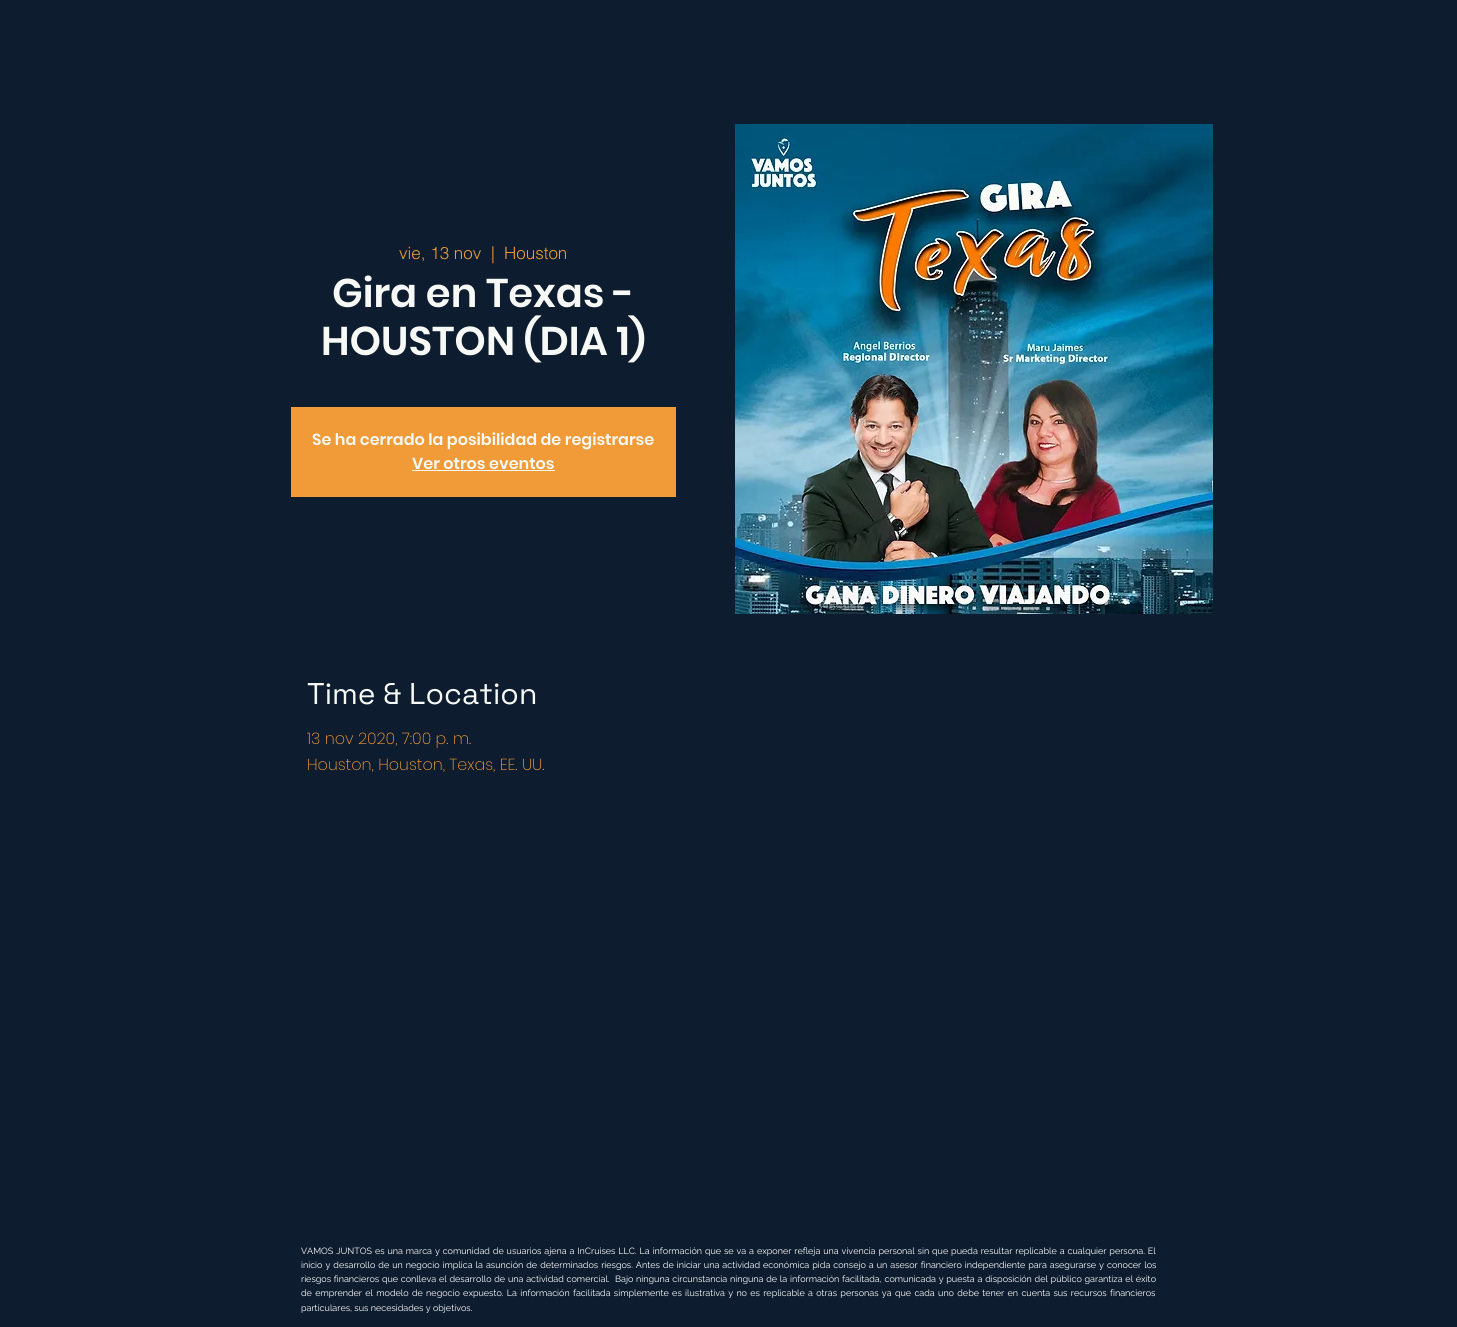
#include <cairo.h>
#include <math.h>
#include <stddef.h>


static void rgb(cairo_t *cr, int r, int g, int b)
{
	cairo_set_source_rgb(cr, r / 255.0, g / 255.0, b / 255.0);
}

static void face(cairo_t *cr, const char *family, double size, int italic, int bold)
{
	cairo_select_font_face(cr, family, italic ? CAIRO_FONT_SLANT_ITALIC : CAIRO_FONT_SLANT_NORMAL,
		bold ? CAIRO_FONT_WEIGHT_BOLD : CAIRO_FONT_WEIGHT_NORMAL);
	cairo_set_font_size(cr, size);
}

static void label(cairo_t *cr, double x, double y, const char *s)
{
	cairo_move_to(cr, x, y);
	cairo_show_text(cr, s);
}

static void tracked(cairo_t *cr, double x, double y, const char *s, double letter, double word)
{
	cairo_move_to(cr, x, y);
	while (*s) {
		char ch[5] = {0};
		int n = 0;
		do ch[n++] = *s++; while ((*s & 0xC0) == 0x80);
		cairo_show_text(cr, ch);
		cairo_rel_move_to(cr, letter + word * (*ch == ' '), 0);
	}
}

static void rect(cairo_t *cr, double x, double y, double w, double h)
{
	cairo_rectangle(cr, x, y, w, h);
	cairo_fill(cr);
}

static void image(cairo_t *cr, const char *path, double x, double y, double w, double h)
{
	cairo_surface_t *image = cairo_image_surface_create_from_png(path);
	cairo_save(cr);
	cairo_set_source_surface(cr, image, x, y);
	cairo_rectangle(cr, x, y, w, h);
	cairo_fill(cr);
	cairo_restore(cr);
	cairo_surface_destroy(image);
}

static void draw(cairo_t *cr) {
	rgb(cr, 13, 28, 47);
	cairo_paint(cr);
	face(cr, "helvetica Light", 17, 0, 0);
	rgb(cr, 241, 155, 56);
	label(cr, 399, 259, "vie, 13 nov");
	label(cr, 491, 259, "|");
	label(cr, 504, 259, "Houston");
	face(cr, "Poppins SemiBold", 40, 0, 0);
	rgb(cr, 246, 249, 245);
	label(cr, 332, 307, "Gira en Texas -");
	label(cr, 321, 355, "HOUSTON (DIA 1)");
	rgb(cr, 241, 155, 56);
	rect(cr, 291, 407, 385, 90);
	face(cr, "Poppins SemiBold", 16, 0, 0);
	rgb(cr, 246, 249, 245);
	label(cr, 312, 445, "Se ha cerrado la posibilidad de registrarse");
	label(cr, 412, 469, "Ver otros eventos");
	rect(cr, 412, 470, 143, 1);
	image(cr, "image0.png", 735, 124, 478, 490);
	face(cr, "Space Grotesk", 30, 0, 0);
	label(cr, 307, 704, "Time & Location");
	face(cr, "Poppins ExtraLight", 16, 0, 0);
	rgb(cr, 241, 155, 56);
	label(cr, 307, 744, "13 nov 2020, 7:00 p. m.");
	label(cr, 307, 770, "Houston, Houston, Texas, EE. UU.");
	face(cr, "Raleway", 9, 0, 0);
	rgb(cr, 255, 255, 255);
	tracked(cr, 301, 1254, "VAMOS JUNTOS es una marca y comunidad de usuarios ajena a InCruises LLC. La información que se va a exponer refleja una vivencia personal sin que pueda resultar replicable a cualquier persona. El", 0, 0.6);
	tracked(cr, 301, 1268, "inicio y desarrollo de un negocio implica la asunción de determinados riesgos. Antes de iniciar una actividad económica pida consejo a un asesor financiero independiente para asegurarse y conocer los", 0, 0.7);
	tracked(cr, 301, 1282, "riesgos financieros que conlleva el desarrollo de una actividad comercial.  Bajo ninguna circunstancia ninguna de la información facilitada, comunicada y puesta a disposición del público garantiza el éxito", 0, 0.45);
	tracked(cr, 301, 1296, "de emprender el modelo de negocio expuesto. La información facilitada simplemente es ilustrativa y no es replicable a otras personas ya que cada uno debe tener en cuenta sus recursos financieros", 0, 1);
	label(cr, 301, 1311, "particulares, sus necesidades y objetivos.");
}

int main(void) {
	cairo_surface_t *surface = cairo_image_surface_create(CAIRO_FORMAT_RGB24, 1457, 1327);
	cairo_t *cr = cairo_create(surface);
	cairo_font_options_t *options = cairo_font_options_create();
	cairo_font_options_set_hint_metrics(options, CAIRO_HINT_METRICS_OFF);
	cairo_font_options_set_hint_style(options, CAIRO_HINT_STYLE_NONE);
	cairo_set_font_options(cr, options);
	cairo_set_miter_limit(cr, 4);
	draw(cr);
	cairo_surface_write_to_png(surface, "render.png");
	cairo_font_options_destroy(options);
	cairo_destroy(cr);
	cairo_surface_destroy(surface);
	return 0;
}
